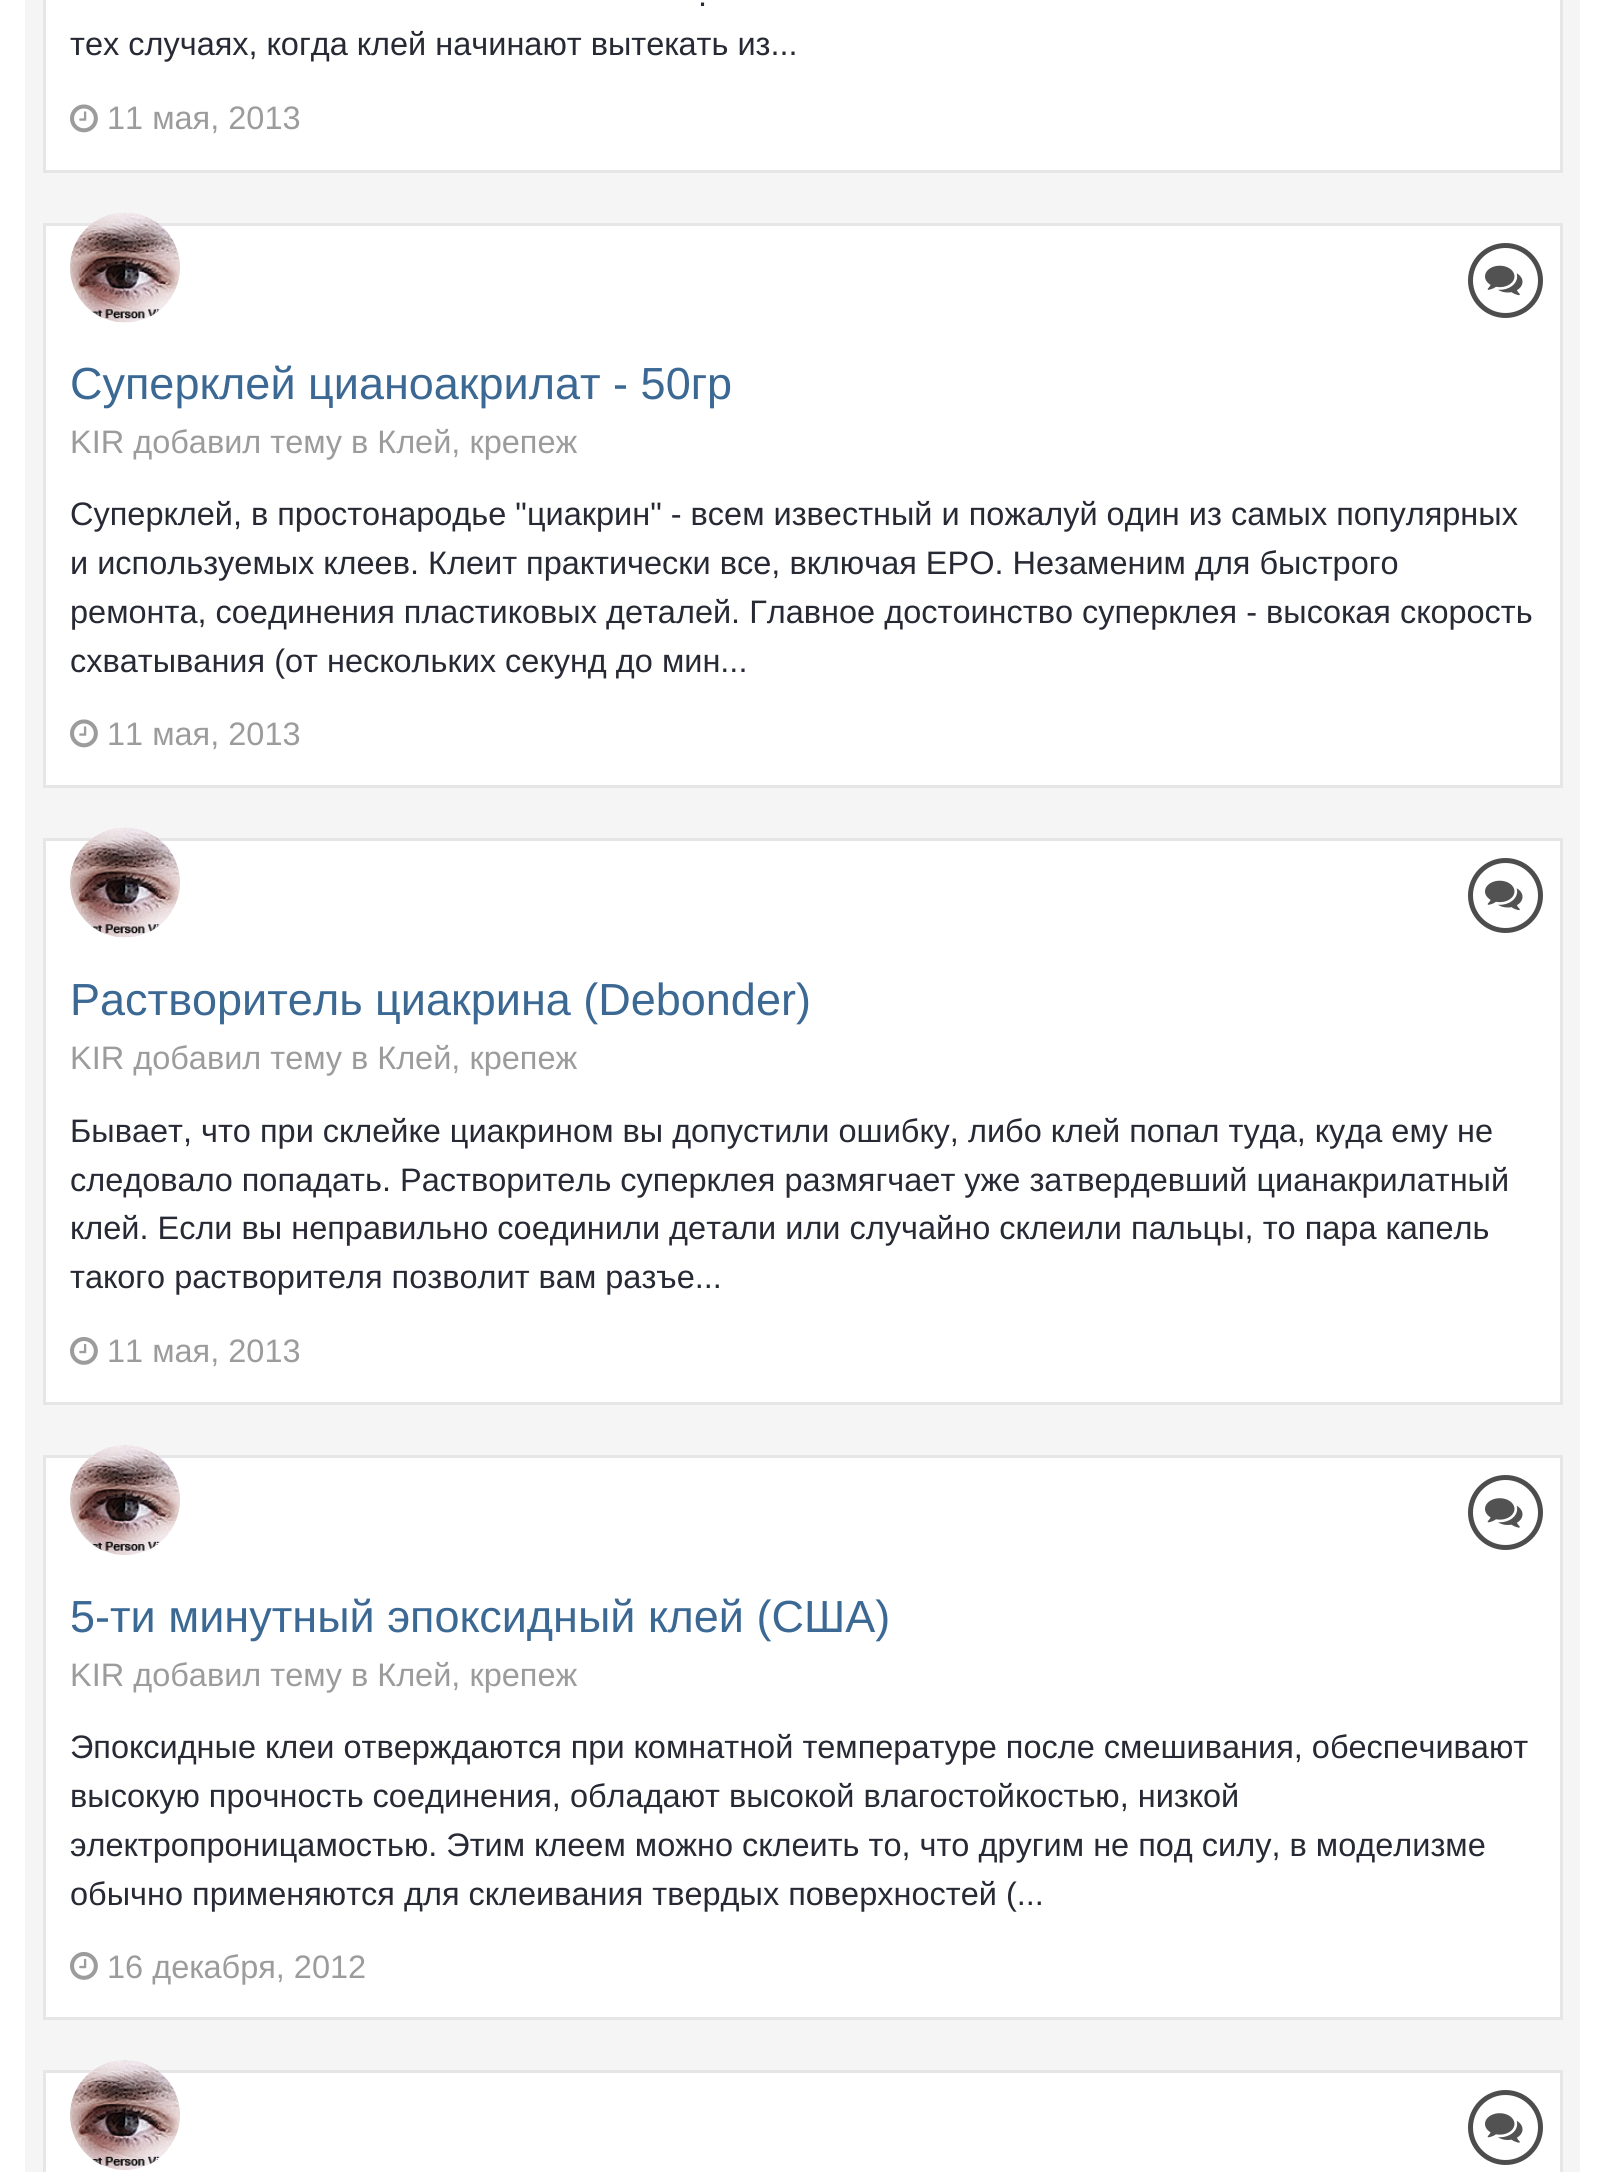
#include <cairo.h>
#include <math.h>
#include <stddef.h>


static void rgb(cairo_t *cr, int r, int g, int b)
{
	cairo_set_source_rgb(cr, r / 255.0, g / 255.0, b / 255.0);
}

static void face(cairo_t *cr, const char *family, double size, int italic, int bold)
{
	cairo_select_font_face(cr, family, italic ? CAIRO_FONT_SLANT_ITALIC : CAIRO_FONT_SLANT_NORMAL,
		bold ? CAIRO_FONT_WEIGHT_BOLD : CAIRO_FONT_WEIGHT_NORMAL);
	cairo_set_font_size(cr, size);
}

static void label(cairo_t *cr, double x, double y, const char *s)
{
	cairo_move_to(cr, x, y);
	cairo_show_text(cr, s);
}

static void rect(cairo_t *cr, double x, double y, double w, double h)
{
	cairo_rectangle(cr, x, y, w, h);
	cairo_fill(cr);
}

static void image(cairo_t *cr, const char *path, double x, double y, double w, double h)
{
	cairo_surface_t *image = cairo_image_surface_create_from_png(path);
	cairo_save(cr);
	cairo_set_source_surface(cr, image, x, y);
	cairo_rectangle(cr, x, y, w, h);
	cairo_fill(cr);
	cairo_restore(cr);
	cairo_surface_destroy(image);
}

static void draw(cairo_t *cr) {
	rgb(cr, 255, 255, 255);
	cairo_paint(cr);
	rgb(cr, 245, 245, 245);
	rect(cr, 25, 0, 1555, 2172);
	rgb(cr, 255, 255, 255);
	cairo_rectangle(cr, 44.5, -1.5, 1517, 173);
	cairo_fill_preserve(cr);
	rgb(cr, 230, 230, 230);
	cairo_set_line_width(cr, 3);
	cairo_stroke(cr);
	face(cr, "Liberation Sans", 32.5, 0, 0);
	rgb(cr, 39, 42, 52);
	label(cr, 698, 6, ".");
	label(cr, 70, 55, "тех случаях, когда клей начинают вытекать из...");
	image(cr, "image0.png", 70, 104, 28, 29);
	rgb(cr, 156, 156, 156);
	label(cr, 107, 129, "11 мая, 2013");
	rgb(cr, 255, 255, 255);
	cairo_rectangle(cr, 44.5, 224.5, 1517, 562);
	cairo_fill_preserve(cr);
	rgb(cr, 230, 230, 230);
	cairo_stroke(cr);
	rgb(cr, 255, 255, 255);
	cairo_arc(cr, 125, 268, 55, 0, 2 * M_PI);
	cairo_fill(cr);
	image(cr, "image1.png", 70, 212, 110, 111);
	cairo_arc(cr, 1505.5, 280.5, 35, 0, 2 * M_PI);
	rgb(cr, 77, 77, 77);
	cairo_set_line_width(cr, 5);
	cairo_stroke(cr);
	image(cr, "image2.png", 1485, 265, 38, 31);
	face(cr, "Liberation Sans", 45, 0, 0);
	rgb(cr, 60, 105, 148);
	label(cr, 70, 399, "Суперклей цианоакрилат - 50гр");
	face(cr, "Liberation Sans", 32.5, 0, 0);
	rgb(cr, 156, 156, 156);
	label(cr, 70, 453, "KIR добавил тему в Клей, крепеж");
	rgb(cr, 39, 42, 52);
	label(cr, 70, 525, "Суперклей, в простонародье \"циакрин\" - всем известный и пожалуй один из самых популярных");
	label(cr, 70, 574, "и используемых клеев. Клеит практически все, включая EPO. Незаменим для быстрого");
	label(cr, 70, 623, "ремонта, соединения пластиковых деталей. Главное достоинство суперклея - высокая скорость");
	label(cr, 70, 672, "схватывания (от нескольких секунд до мин...");
	image(cr, "image0.png", 70, 719, 28, 29);
	rgb(cr, 156, 156, 156);
	label(cr, 107, 745, "11 мая, 2013");
	rgb(cr, 255, 255, 255);
	cairo_rectangle(cr, 44.5, 839.5, 1517, 564);
	cairo_fill_preserve(cr);
	rgb(cr, 230, 230, 230);
	cairo_set_line_width(cr, 3);
	cairo_stroke(cr);
	rgb(cr, 255, 255, 255);
	cairo_arc(cr, 125, 883, 55, 0, 2 * M_PI);
	cairo_fill(cr);
	image(cr, "image3.png", 70, 827, 110, 111);
	cairo_arc(cr, 1505.5, 895.5, 35, 0, 2 * M_PI);
	rgb(cr, 77, 77, 77);
	cairo_set_line_width(cr, 5);
	cairo_stroke(cr);
	image(cr, "image2.png", 1485, 880, 38, 31);
	face(cr, "Liberation Sans", 45, 0, 0);
	rgb(cr, 60, 105, 148);
	label(cr, 70, 1015, "Растворитель циакрина (Debonder)");
	face(cr, "Liberation Sans", 32.5, 0, 0);
	rgb(cr, 156, 156, 156);
	label(cr, 70, 1069, "KIR добавил тему в Клей, крепеж");
	rgb(cr, 39, 42, 52);
	label(cr, 70, 1142, "Бывает, что при склейке циакрином вы допустили ошибку, либо клей попал туда, куда ему не");
	label(cr, 70, 1191, "следовало попадать. Растворитель суперклея размягчает уже затвердевший цианакрилатный");
	label(cr, 70, 1239, "клей. Если вы неправильно соединили детали или случайно склеили пальцы, то пара капель");
	label(cr, 70, 1288, "такого растворителя позволит вам разъе...");
	image(cr, "image4.png", 70, 1337, 28, 28);
	rgb(cr, 156, 156, 156);
	label(cr, 107, 1362, "11 мая, 2013");
	rgb(cr, 255, 255, 255);
	cairo_rectangle(cr, 44.5, 1456.5, 1517, 562);
	cairo_fill_preserve(cr);
	rgb(cr, 230, 230, 230);
	cairo_set_line_width(cr, 3);
	cairo_stroke(cr);
	rgb(cr, 255, 255, 255);
	cairo_arc(cr, 125, 1500, 55, 0, 2 * M_PI);
	cairo_fill(cr);
	image(cr, "image5.png", 70, 1445, 110, 110);
	cairo_arc(cr, 1505.5, 1512.5, 35, 0, 2 * M_PI);
	rgb(cr, 77, 77, 77);
	cairo_set_line_width(cr, 5);
	cairo_stroke(cr);
	image(cr, "image6.png", 1485, 1498, 38, 30);
	face(cr, "Liberation Sans", 45, 0, 0);
	rgb(cr, 60, 105, 148);
	label(cr, 70, 1632, "5-ти минутный эпоксидный клей (США)");
	face(cr, "Liberation Sans", 32.5, 0, 0);
	rgb(cr, 156, 156, 156);
	label(cr, 70, 1686, "KIR добавил тему в Клей, крепеж");
	rgb(cr, 39, 42, 52);
	label(cr, 70, 1758, "Эпоксидные клеи отверждаются при комнатной температуре после смешивания, обеспечивают");
	label(cr, 70, 1807, "высокую прочность соединения, обладают высокой влагостойкостью, низкой");
	label(cr, 70, 1856, "электропроницамостью. Этим клеем можно склеить то, что другим не под силу, в моделизме");
	label(cr, 70, 1905, "обычно применяются для склеивания твердых поверхностей (...");
	image(cr, "image4.png", 70, 1952, 28, 28);
	rgb(cr, 156, 156, 156);
	label(cr, 107, 1978, "16 декабря, 2012");
	rgb(cr, 255, 255, 255);
	cairo_rectangle(cr, 44.5, 2071.5, 1517, 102);
	cairo_fill_preserve(cr);
	rgb(cr, 230, 230, 230);
	cairo_set_line_width(cr, 3);
	cairo_stroke(cr);
	rgb(cr, 255, 255, 255);
	cairo_arc(cr, 125, 2115, 55, 0, 2 * M_PI);
	cairo_fill(cr);
	image(cr, "image7.png", 70, 2060, 110, 110);
	cairo_arc(cr, 1505.5, 2127.5, 35, 0, 2 * M_PI);
	rgb(cr, 77, 77, 77);
	cairo_set_line_width(cr, 5);
	cairo_stroke(cr);
	image(cr, "image6.png", 1485, 2113, 38, 30);
}

int main(void) {
	cairo_surface_t *surface = cairo_image_surface_create(CAIRO_FORMAT_RGB24, 1605, 2172);
	cairo_t *cr = cairo_create(surface);
	cairo_font_options_t *options = cairo_font_options_create();
	cairo_font_options_set_hint_metrics(options, CAIRO_HINT_METRICS_OFF);
	cairo_font_options_set_hint_style(options, CAIRO_HINT_STYLE_NONE);
	cairo_set_font_options(cr, options);
	cairo_set_miter_limit(cr, 4);
	draw(cr);
	cairo_surface_write_to_png(surface, "render.png");
	cairo_font_options_destroy(options);
	cairo_destroy(cr);
	cairo_surface_destroy(surface);
	return 0;
}
